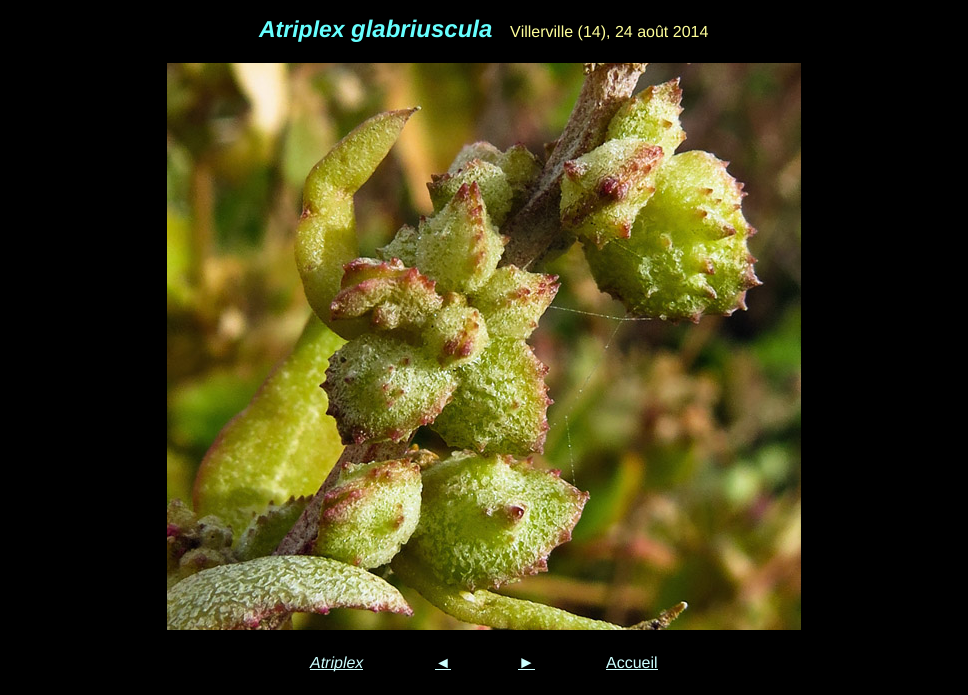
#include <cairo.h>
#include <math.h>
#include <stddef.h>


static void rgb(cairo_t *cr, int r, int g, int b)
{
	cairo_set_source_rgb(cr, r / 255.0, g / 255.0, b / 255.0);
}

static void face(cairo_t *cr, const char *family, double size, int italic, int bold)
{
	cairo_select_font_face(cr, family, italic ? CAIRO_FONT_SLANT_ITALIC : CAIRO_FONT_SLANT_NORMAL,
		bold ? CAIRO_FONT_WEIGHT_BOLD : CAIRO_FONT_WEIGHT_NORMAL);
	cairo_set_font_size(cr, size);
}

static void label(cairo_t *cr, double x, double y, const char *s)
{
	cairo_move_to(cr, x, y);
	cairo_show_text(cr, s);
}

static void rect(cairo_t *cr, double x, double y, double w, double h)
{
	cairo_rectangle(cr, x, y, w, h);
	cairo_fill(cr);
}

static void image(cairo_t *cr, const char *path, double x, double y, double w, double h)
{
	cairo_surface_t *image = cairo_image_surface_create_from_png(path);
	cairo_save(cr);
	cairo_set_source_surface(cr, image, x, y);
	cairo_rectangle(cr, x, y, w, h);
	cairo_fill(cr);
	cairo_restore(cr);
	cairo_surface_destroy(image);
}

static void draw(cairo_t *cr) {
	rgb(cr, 0, 0, 0);
	cairo_paint(cr);
	face(cr, "Liberation Sans", 23, 1, 1);
	rgb(cr, 102, 255, 255);
	label(cr, 259, 37, "Atriplex");
	face(cr, "Liberation Sans", 24, 1, 1);
	label(cr, 351, 37, "glabriuscula");
	face(cr, "Liberation Sans", 16, 0, 0);
	rgb(cr, 255, 255, 153);
	label(cr, 510, 37, "Villerville (14), 24 août 2014");
	image(cr, "image0.png", 167, 63, 634, 567);
	rgb(cr, 204, 255, 255);
	rect(cr, 310, 669, 53, 1);
	face(cr, "Liberation Sans", 16, 1, 0);
	label(cr, 310, 668, "Atriplex");
	face(cr, "Liberation Sans", 16, 0, 0);
	label(cr, 435, 668, "◄");
	rect(cr, 435, 669, 16, 1);
	face(cr, "Liberation Sans", 17, 0, 0);
	label(cr, 518, 668, "►");
	rect(cr, 518, 669, 17, 1);
	face(cr, "Liberation Sans", 16, 0, 0);
	label(cr, 606, 668, "Accueil");
	rect(cr, 606, 669, 52, 1);
}

int main(void) {
	cairo_surface_t *surface = cairo_image_surface_create(CAIRO_FORMAT_RGB24, 968, 695);
	cairo_t *cr = cairo_create(surface);
	cairo_font_options_t *options = cairo_font_options_create();
	cairo_font_options_set_hint_metrics(options, CAIRO_HINT_METRICS_OFF);
	cairo_font_options_set_hint_style(options, CAIRO_HINT_STYLE_NONE);
	cairo_set_font_options(cr, options);
	cairo_set_miter_limit(cr, 4);
	draw(cr);
	cairo_surface_write_to_png(surface, "render.png");
	cairo_font_options_destroy(options);
	cairo_destroy(cr);
	cairo_surface_destroy(surface);
	return 0;
}
